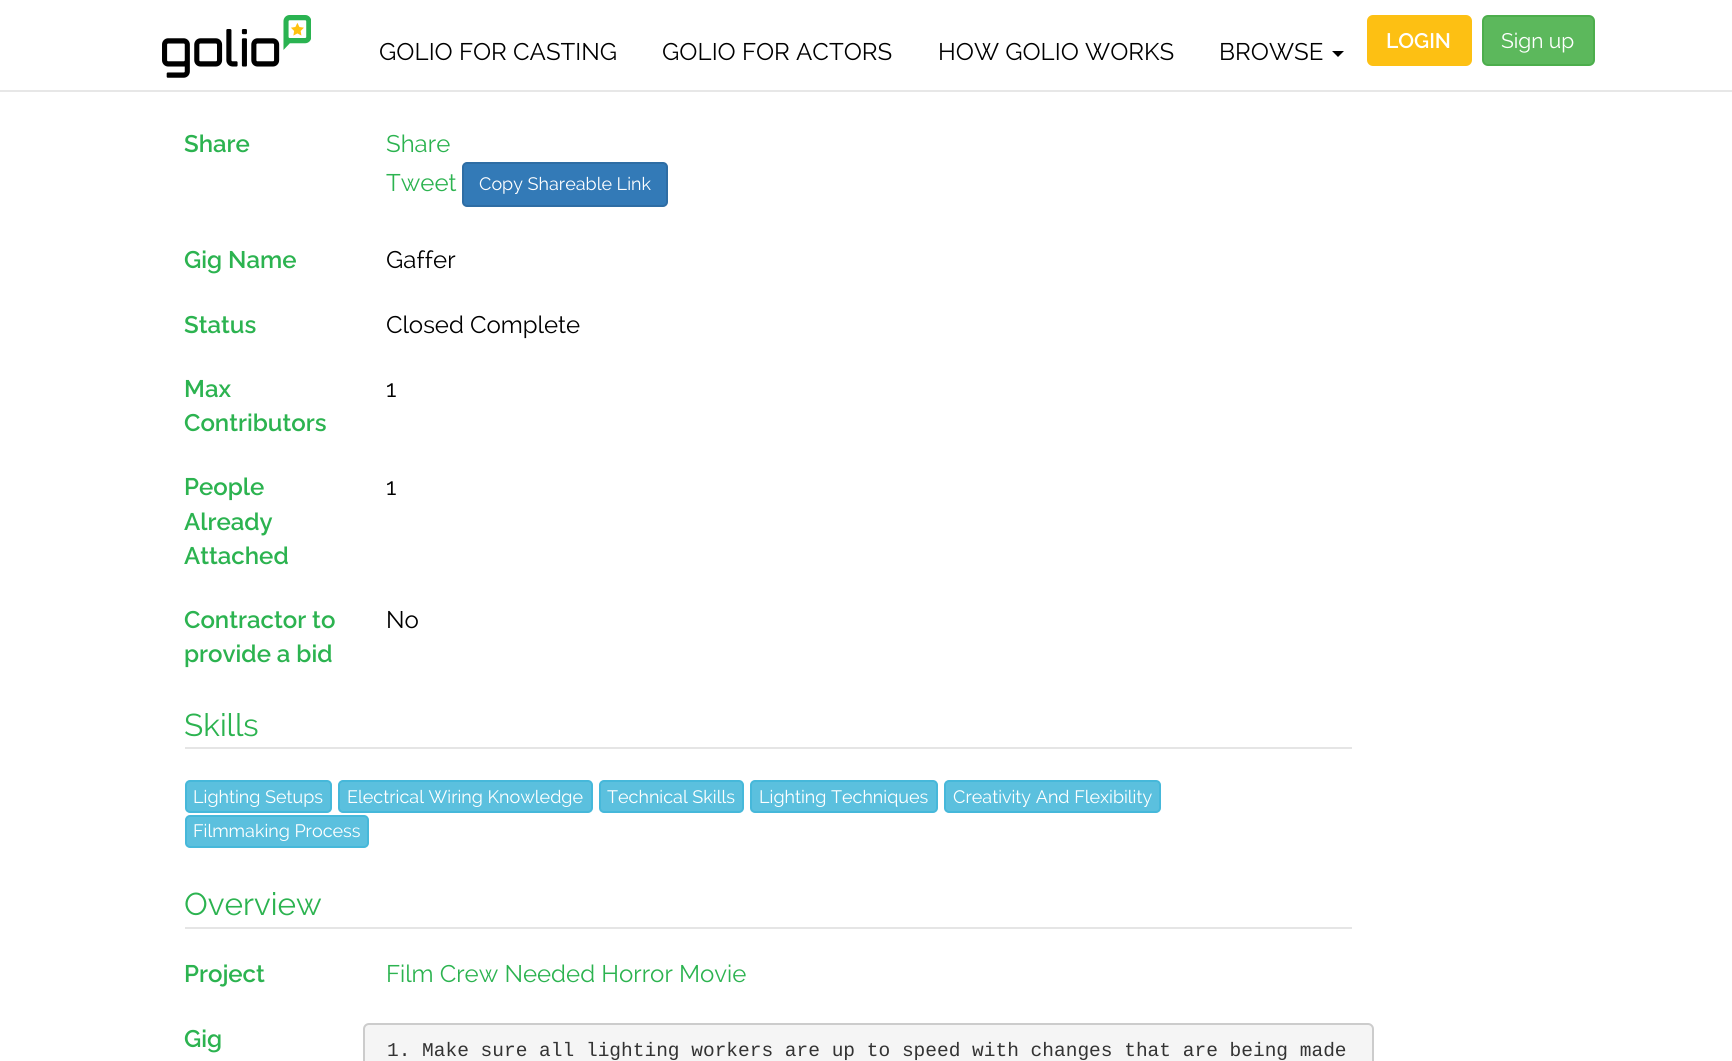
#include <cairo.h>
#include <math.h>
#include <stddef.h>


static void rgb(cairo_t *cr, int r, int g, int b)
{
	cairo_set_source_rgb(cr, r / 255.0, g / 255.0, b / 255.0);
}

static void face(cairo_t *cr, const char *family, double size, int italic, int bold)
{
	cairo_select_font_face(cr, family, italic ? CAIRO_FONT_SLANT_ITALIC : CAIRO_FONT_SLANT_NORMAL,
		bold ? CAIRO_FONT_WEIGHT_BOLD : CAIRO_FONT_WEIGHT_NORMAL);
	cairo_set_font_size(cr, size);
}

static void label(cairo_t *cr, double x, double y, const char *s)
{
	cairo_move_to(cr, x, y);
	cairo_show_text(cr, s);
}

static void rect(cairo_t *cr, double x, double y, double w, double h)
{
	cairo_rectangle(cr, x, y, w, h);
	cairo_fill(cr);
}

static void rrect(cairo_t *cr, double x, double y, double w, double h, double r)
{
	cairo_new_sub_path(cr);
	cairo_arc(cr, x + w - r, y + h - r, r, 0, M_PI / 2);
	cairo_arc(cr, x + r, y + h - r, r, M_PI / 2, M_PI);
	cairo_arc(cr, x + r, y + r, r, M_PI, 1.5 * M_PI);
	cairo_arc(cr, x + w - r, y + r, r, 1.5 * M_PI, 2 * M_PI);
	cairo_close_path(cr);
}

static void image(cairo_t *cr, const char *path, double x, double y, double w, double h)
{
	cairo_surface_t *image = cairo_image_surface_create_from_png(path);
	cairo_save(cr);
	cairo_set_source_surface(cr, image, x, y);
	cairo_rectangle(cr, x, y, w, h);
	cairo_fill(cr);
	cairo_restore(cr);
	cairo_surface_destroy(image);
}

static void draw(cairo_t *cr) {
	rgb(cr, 255, 255, 255);
	cairo_paint(cr);
	rgb(cr, 231, 231, 231);
	rect(cr, 0, 90, 1732, 2);
	image(cr, "image0.png", 162, 15, 149, 63);
	face(cr, "Raleway", 24, 0, 0);
	rgb(cr, 0, 0, 0);
	label(cr, 379, 60, "GOLIO FOR CASTING");
	label(cr, 662, 60, "GOLIO FOR ACTORS");
	label(cr, 938, 60, "HOW GOLIO WORKS");
	label(cr, 1219, 60, "BROWSE");
	cairo_new_path(cr);
	cairo_move_to(cr, 1332, 51);
	cairo_line_to(cr, 1344, 51);
	cairo_line_to(cr, 1338, 57);
	cairo_close_path(cr);
	cairo_fill(cr);
	rgb(cr, 253, 192, 19);
	rrect(cr, 1368, 16, 103, 49, 5);
	cairo_fill_preserve(cr);
	cairo_stroke(cr);
	face(cr, "Raleway SemiBold", 21, 0, 0);
	rgb(cr, 255, 255, 255);
	label(cr, 1386, 48, "LOGIN");
	rgb(cr, 92, 184, 92);
	rrect(cr, 1483, 16, 111, 49, 5);
	cairo_fill_preserve(cr);
	rgb(cr, 76, 174, 76);
	cairo_stroke(cr);
	face(cr, "Raleway", 21, 0, 0);
	rgb(cr, 255, 255, 255);
	label(cr, 1501, 48, "Sign up");
	face(cr, "Raleway SemiBold", 24, 0, 0);
	rgb(cr, 44, 179, 80);
	label(cr, 184, 152, "Share");
	face(cr, "Raleway", 24, 0, 0);
	label(cr, 386, 152, "Share");
	label(cr, 386, 191, "Tweet");
	rgb(cr, 51, 122, 183);
	rrect(cr, 463, 163, 204, 43, 4);
	cairo_fill_preserve(cr);
	rgb(cr, 46, 109, 164);
	cairo_stroke(cr);
	face(cr, "Raleway", 18, 0, 0);
	rgb(cr, 255, 255, 255);
	label(cr, 479, 190, "Copy Shareable Link");
	face(cr, "Raleway SemiBold", 24, 0, 0);
	rgb(cr, 44, 179, 80);
	label(cr, 184, 268, "Gig Name");
	face(cr, "Raleway", 24, 0, 0);
	rgb(cr, 0, 0, 0);
	label(cr, 386, 268, "Gaffer");
	face(cr, "Raleway SemiBold", 24, 0, 0);
	rgb(cr, 44, 179, 80);
	label(cr, 184, 333, "Status");
	face(cr, "Raleway", 24, 0, 0);
	rgb(cr, 0, 0, 0);
	label(cr, 386, 333, "Closed Complete");
	face(cr, "Raleway SemiBold", 24, 0, 0);
	rgb(cr, 44, 179, 80);
	label(cr, 184, 397, "Max");
	label(cr, 184, 431, "Contributors");
	face(cr, "Raleway", 24, 0, 0);
	rgb(cr, 0, 0, 0);
	label(cr, 386, 397, "1");
	face(cr, "Raleway SemiBold", 24, 0, 0);
	rgb(cr, 44, 179, 80);
	label(cr, 184, 495, "People");
	label(cr, 184, 530, "Already");
	label(cr, 184, 564, "Attached");
	face(cr, "Raleway", 24, 0, 0);
	rgb(cr, 0, 0, 0);
	label(cr, 386, 495, "1");
	face(cr, "Raleway SemiBold", 24, 0, 0);
	rgb(cr, 44, 179, 80);
	label(cr, 184, 628, "Contractor to");
	label(cr, 184, 662, "provide a bid");
	face(cr, "Raleway", 24, 0, 0);
	rgb(cr, 0, 0, 0);
	label(cr, 386, 628, "No");
	rgb(cr, 229, 229, 229);
	rect(cr, 185, 747, 1167, 2);
	face(cr, "Raleway", 31.5, 0, 0);
	rgb(cr, 44, 179, 80);
	label(cr, 184, 736, "Skills");
	rgb(cr, 91, 192, 222);
	rrect(cr, 186, 781, 145, 31, 4);
	cairo_fill_preserve(cr);
	rgb(cr, 70, 184, 218);
	cairo_stroke(cr);
	face(cr, "Raleway", 18, 0, 0);
	rgb(cr, 255, 255, 255);
	label(cr, 193, 803, "Lighting Setups");
	rgb(cr, 91, 192, 222);
	rrect(cr, 339, 781, 253, 31, 4);
	cairo_fill_preserve(cr);
	rgb(cr, 70, 184, 218);
	cairo_stroke(cr);
	rgb(cr, 255, 255, 255);
	label(cr, 347, 803, "Electrical Wiring Knowledge");
	rgb(cr, 91, 192, 222);
	rrect(cr, 600, 781, 143, 31, 4);
	cairo_fill_preserve(cr);
	rgb(cr, 70, 184, 218);
	cairo_stroke(cr);
	rgb(cr, 255, 255, 255);
	label(cr, 607, 803, "Technical Skills");
	rgb(cr, 91, 192, 222);
	rrect(cr, 751, 781, 186, 31, 4);
	cairo_fill_preserve(cr);
	rgb(cr, 70, 184, 218);
	cairo_stroke(cr);
	rgb(cr, 255, 255, 255);
	label(cr, 759, 803, "Lighting Techniques");
	rgb(cr, 91, 192, 222);
	rrect(cr, 945, 781, 215, 31, 4);
	cairo_fill_preserve(cr);
	rgb(cr, 70, 184, 218);
	cairo_stroke(cr);
	rgb(cr, 255, 255, 255);
	label(cr, 953, 803, "Creativity And Flexibility");
	rgb(cr, 91, 192, 222);
	rrect(cr, 186, 816, 182, 31, 4);
	cairo_fill_preserve(cr);
	rgb(cr, 70, 184, 218);
	cairo_stroke(cr);
	rgb(cr, 255, 255, 255);
	label(cr, 193, 837, "Filmmaking Process");
	rgb(cr, 229, 229, 229);
	rect(cr, 185, 927, 1167, 2);
	face(cr, "Raleway", 31.5, 0, 0);
	rgb(cr, 44, 179, 80);
	label(cr, 184, 915, "Overview");
	face(cr, "Raleway SemiBold", 24, 0, 0);
	label(cr, 184, 982, "Project");
	face(cr, "Raleway", 24, 0, 0);
	label(cr, 386, 982, "Film Crew Needed Horror Movie");
	face(cr, "Raleway SemiBold", 24, 0, 0);
	label(cr, 184, 1047, "Gig");
	rgb(cr, 245, 245, 245);
	rrect(cr, 364, 1024, 1009, 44, 5);
	cairo_fill_preserve(cr);
	rgb(cr, 204, 204, 204);
	cairo_stroke(cr);
	face(cr, "Liberation Mono", 19.5, 0, 0);
	rgb(cr, 51, 51, 51);
	label(cr, 387, 1056, "1. Make sure all lighting workers are up to speed with changes that are being made");
}

int main(void) {
	cairo_surface_t *surface = cairo_image_surface_create(CAIRO_FORMAT_RGB24, 1732, 1061);
	cairo_t *cr = cairo_create(surface);
	cairo_font_options_t *options = cairo_font_options_create();
	cairo_font_options_set_hint_metrics(options, CAIRO_HINT_METRICS_OFF);
	cairo_font_options_set_hint_style(options, CAIRO_HINT_STYLE_NONE);
	cairo_set_font_options(cr, options);
	cairo_set_miter_limit(cr, 4);
	draw(cr);
	cairo_surface_write_to_png(surface, "render.png");
	cairo_font_options_destroy(options);
	cairo_destroy(cr);
	cairo_surface_destroy(surface);
	return 0;
}
